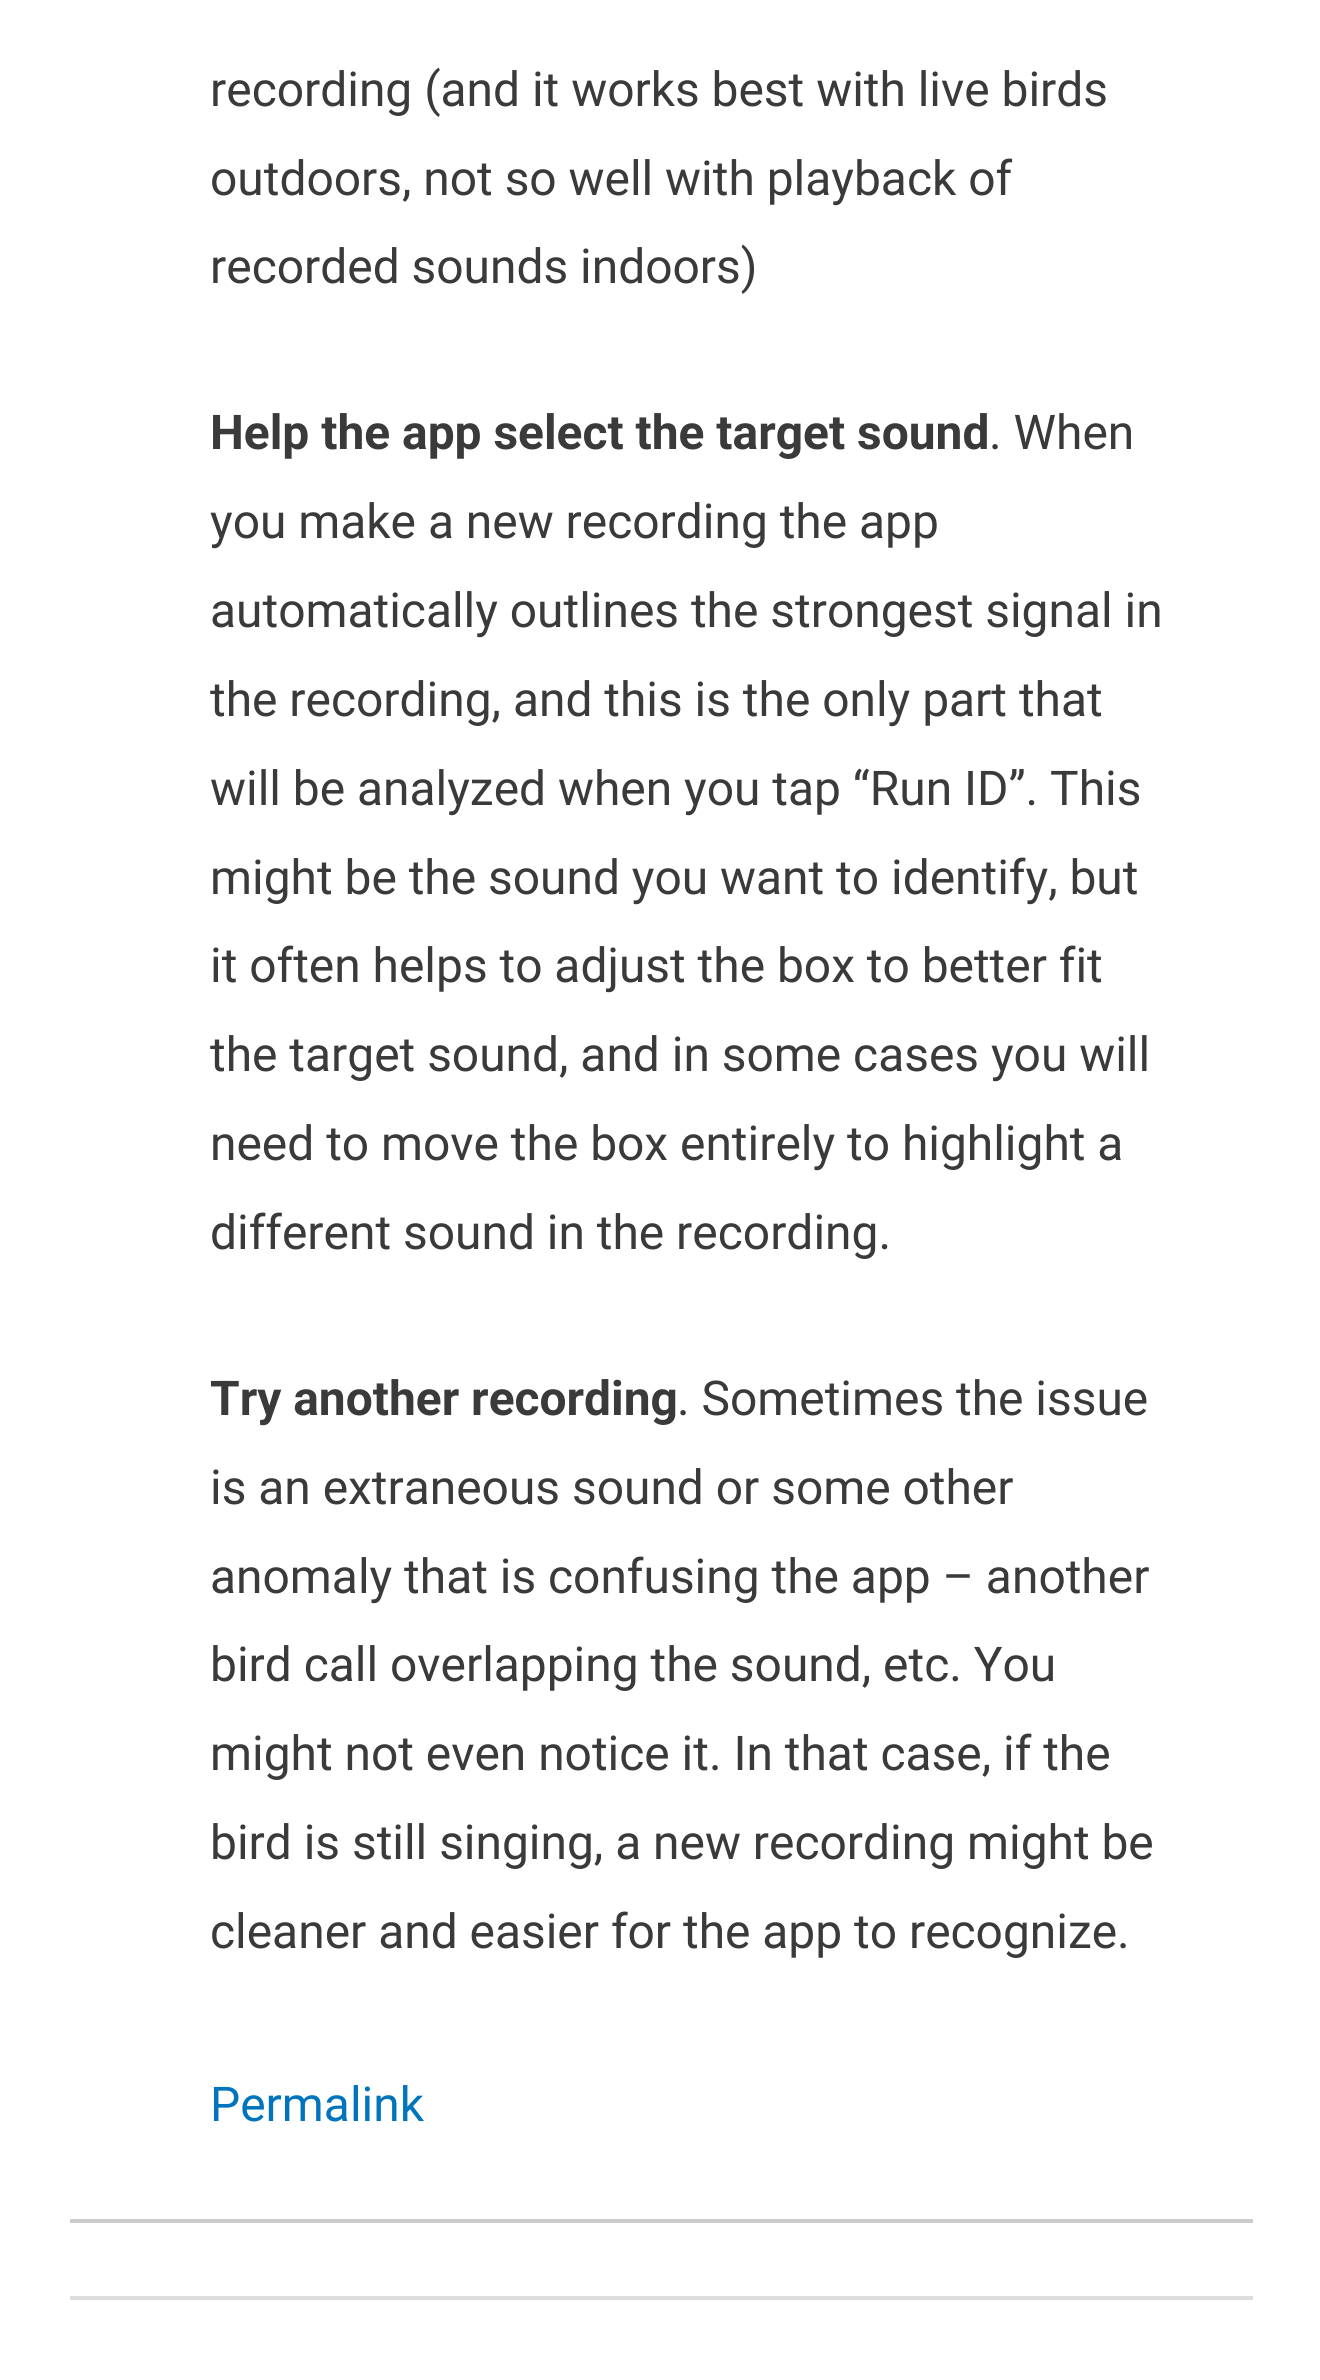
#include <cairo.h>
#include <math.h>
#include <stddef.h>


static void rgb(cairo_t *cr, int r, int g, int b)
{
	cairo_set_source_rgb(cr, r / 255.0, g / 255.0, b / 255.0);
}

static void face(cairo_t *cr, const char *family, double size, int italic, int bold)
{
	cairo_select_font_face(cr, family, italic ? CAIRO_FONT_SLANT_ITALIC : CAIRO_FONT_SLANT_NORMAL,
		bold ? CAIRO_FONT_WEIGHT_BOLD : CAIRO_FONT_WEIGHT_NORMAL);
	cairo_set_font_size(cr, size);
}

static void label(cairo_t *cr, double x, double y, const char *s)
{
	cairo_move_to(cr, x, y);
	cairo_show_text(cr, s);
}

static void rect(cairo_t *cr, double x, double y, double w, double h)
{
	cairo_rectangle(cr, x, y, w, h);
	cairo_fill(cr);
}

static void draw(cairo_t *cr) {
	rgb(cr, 255, 255, 255);
	cairo_paint(cr);
	rgb(cr, 204, 204, 204);
	rect(cr, 70, 2219, 1183, 4);
	face(cr, "Roboto", 47.9, 0, 0);
	rgb(cr, 58, 58, 58);
	label(cr, 210, 106, "recording (and it works best with live birds");
	label(cr, 210, 195, "outdoors, not so well with playback of");
	label(cr, 210, 283, "recorded sounds indoors)");
	face(cr, "Roboto", 47.9, 0, 1);
	label(cr, 210, 449, "Help the app select the target sound");
	face(cr, "Roboto", 47.9, 0, 0);
	label(cr, 989, 449, ". When");
	label(cr, 210, 538, "you make a new recording the app");
	label(cr, 210, 627, "automatically outlines the strongest signal in");
	label(cr, 210, 716, "the recording, and this is the only part that");
	label(cr, 210, 805, "will be analyzed when you tap “Run ID”. This");
	label(cr, 210, 894, "might be the sound you want to identify, but");
	label(cr, 210, 982, "it often helps to adjust the box to better fit");
	label(cr, 210, 1071, "the target sound, and in some cases you will");
	label(cr, 210, 1160, "need to move the box entirely to highlight a");
	label(cr, 210, 1249, "different sound in the recording.");
	face(cr, "Roboto", 47.9, 0, 1);
	label(cr, 210, 1415, "Try another recording");
	face(cr, "Roboto", 47.9, 0, 0);
	label(cr, 677, 1415, ". Sometimes the issue");
	label(cr, 210, 1504, "is an extraneous sound or some other");
	label(cr, 210, 1593, "anomaly that is confusing the app – another");
	label(cr, 210, 1681, "bird call overlapping the sound, etc. You");
	label(cr, 210, 1770, "might not even notice it. In that case, if the");
	label(cr, 210, 1859, "bird is still singing, a new recording might be");
	label(cr, 210, 1948, "cleaner and easier for the app to recognize.");
	rgb(cr, 2, 116, 190);
	label(cr, 210, 2121, "Permalink");
	rgb(cr, 221, 221, 221);
	rect(cr, 70, 2296, 1183, 4);
}

int main(void) {
	cairo_surface_t *surface = cairo_image_surface_create(CAIRO_FORMAT_RGB24, 1320, 2380);
	cairo_t *cr = cairo_create(surface);
	cairo_font_options_t *options = cairo_font_options_create();
	cairo_font_options_set_hint_metrics(options, CAIRO_HINT_METRICS_OFF);
	cairo_font_options_set_hint_style(options, CAIRO_HINT_STYLE_NONE);
	cairo_set_font_options(cr, options);
	cairo_set_miter_limit(cr, 4);
	draw(cr);
	cairo_surface_write_to_png(surface, "render.png");
	cairo_font_options_destroy(options);
	cairo_destroy(cr);
	cairo_surface_destroy(surface);
	return 0;
}
